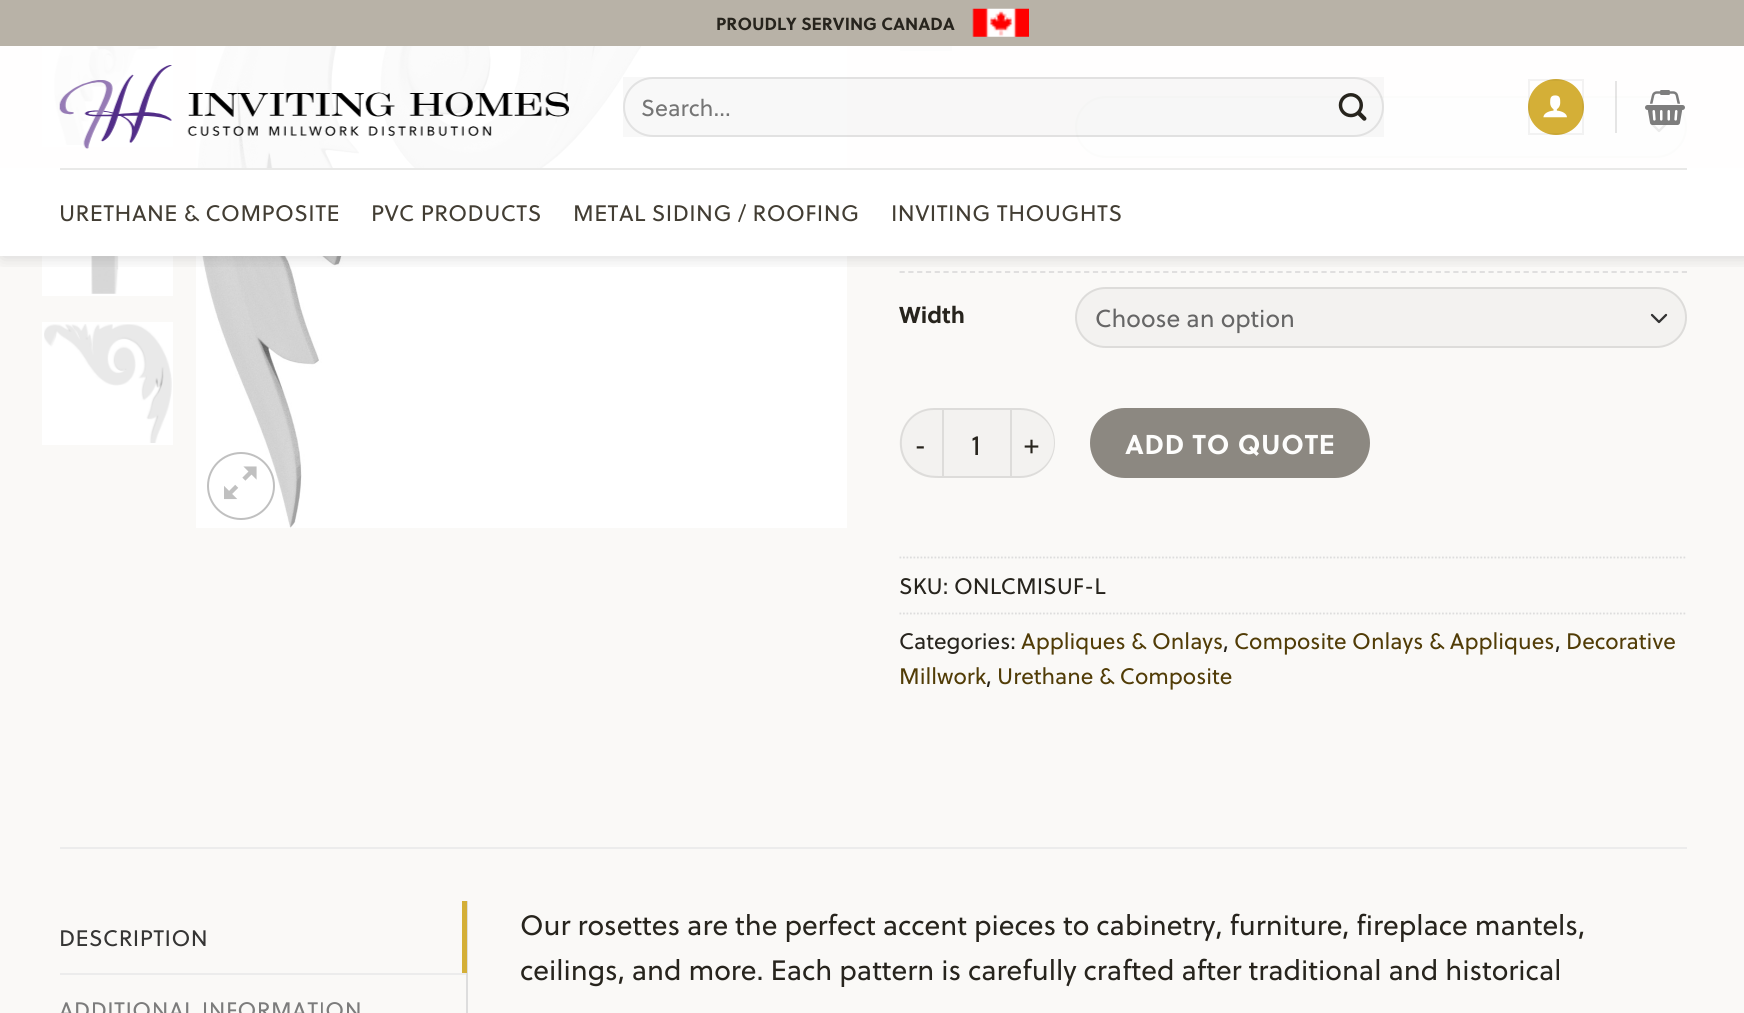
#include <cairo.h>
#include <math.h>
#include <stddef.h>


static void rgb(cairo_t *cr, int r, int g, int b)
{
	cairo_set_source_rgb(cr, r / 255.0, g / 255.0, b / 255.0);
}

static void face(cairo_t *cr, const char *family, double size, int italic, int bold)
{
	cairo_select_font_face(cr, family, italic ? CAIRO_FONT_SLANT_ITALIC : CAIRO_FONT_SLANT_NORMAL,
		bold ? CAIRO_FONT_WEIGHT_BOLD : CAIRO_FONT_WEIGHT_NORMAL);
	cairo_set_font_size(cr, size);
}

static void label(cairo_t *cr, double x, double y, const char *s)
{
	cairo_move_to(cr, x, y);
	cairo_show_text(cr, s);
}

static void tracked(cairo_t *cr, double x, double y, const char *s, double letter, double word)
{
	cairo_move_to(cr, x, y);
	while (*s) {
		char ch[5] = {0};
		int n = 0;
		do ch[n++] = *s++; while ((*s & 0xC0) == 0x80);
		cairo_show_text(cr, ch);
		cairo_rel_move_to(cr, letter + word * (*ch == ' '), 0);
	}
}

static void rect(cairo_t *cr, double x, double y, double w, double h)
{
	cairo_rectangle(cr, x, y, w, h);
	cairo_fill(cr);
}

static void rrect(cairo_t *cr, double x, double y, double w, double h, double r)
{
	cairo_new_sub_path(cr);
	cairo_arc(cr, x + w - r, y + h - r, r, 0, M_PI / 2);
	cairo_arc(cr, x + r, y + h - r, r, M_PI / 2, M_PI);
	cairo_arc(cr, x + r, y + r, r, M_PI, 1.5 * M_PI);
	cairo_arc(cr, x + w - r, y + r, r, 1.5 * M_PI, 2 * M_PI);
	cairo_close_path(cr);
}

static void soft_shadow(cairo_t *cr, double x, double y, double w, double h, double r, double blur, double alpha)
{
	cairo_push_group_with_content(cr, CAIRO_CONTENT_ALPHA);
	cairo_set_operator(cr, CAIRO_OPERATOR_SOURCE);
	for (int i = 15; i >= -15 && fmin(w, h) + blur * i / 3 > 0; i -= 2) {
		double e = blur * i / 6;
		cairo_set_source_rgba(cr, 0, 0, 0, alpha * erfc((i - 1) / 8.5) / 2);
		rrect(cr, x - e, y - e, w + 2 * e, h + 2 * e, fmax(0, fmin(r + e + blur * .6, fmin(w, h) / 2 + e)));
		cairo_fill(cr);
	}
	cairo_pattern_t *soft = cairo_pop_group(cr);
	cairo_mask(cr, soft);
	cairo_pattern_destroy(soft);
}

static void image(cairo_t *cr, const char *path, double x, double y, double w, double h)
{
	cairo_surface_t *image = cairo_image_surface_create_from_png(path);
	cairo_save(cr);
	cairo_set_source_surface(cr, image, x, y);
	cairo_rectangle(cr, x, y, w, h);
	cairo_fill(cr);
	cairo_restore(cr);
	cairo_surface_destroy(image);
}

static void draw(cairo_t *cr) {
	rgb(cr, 250, 249, 247);
	cairo_paint(cr);
	rgb(cr, 255, 255, 255);
	rect(cr, 42, 46, 131, 101);
	image(cr, "image5.png", 53, 46, 109, 99);
	rect(cr, 42, 256, 131, 40);
	image(cr, "image6.png", 91, 256, 33, 38);
	image(cr, "image8.png", 196, 46, 651, 482);
	rgb(cr, 225, 224, 222);
	rect(cr, 900, 46, 52, 5);
	rgb(cr, 243, 242, 240);
	rrect(cr, 1075, 96, 612, 62, 31);
	cairo_fill(cr);
	cairo_new_path(cr);
	cairo_move_to(cr, 1652, 124);
	cairo_line_to(cr, 1659, 131);
	cairo_line_to(cr, 1666, 124);
	rgb(cr, 51, 51, 51);
	cairo_set_line_width(cr, 2.3);
	cairo_set_line_cap(cr, CAIRO_LINE_CAP_ROUND);
	cairo_set_line_join(cr, CAIRO_LINE_JOIN_ROUND);
	cairo_stroke(cr);
	rrect(cr, 1076, 97, 610, 60, 30);
	cairo_set_source_rgba(cr, 0, 0, 0, 0.09);
	cairo_set_line_width(cr, 2);
	cairo_set_line_cap(cr, CAIRO_LINE_CAP_BUTT);
	cairo_set_line_join(cr, CAIRO_LINE_JOIN_MITER);
	cairo_stroke(cr);
	cairo_new_path(cr);
	cairo_move_to(cr, 899.5, 272);
	cairo_line_to(cr, 1687, 272);
	rgb(cr, 221, 221, 221);
	cairo_set_line_width(cr, 1.8);
	cairo_set_dash(cr, (double[]){5.25, 3.54}, 2, 0);
	cairo_stroke(cr);
	cairo_save(cr);
	cairo_rectangle(cr, 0, 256, 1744, 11);
	cairo_clip(cr);
	rgb(cr, 0, 0, 0);
	soft_shadow(cr, 2, 2, 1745, 255, 0, 9, 0.15);
	cairo_restore(cr);
	rgb(cr, 184, 178, 167);
	rect(cr, 0, 0, 1744, 46);
	face(cr, "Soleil", 17.5, 0, 1);
	rgb(cr, 39, 36, 29);
	label(cr, 716, 30, "PROUDLY SERVING CANADA");
	image(cr, "image0.png", 972, 8, 57, 29);
	cairo_set_source_rgba(cr, 1, 1, 1, 0.9);
	rect(cr, 0, 46, 1744, 122);
	image(cr, "image1.png", 59, 65, 510, 84);
	cairo_set_source_rgba(cr, 0, 0, 0, 0.03);
	rect(cr, 623, 77, 761, 60);
	rrect(cr, 624, 78, 759, 58, 29);
	cairo_set_source_rgba(cr, 0, 0, 0, 0.09);
	cairo_set_line_width(cr, 2);
	cairo_set_dash(cr, NULL, 0, 0);
	cairo_stroke(cr);
	face(cr, "Soleil", 23, 0, 0);
	rgb(cr, 117, 117, 117);
	label(cr, 641, 116, "Search…");
	image(cr, "image2.png", 1338, 93, 29, 28);
	rgb(cr, 212, 175, 55);
	cairo_arc(cr, 1556, 107, 28, 0, 2 * M_PI);
	cairo_fill(cr);
	cairo_rectangle(cr, 1529, 80, 54, 54);
	cairo_set_source_rgba(cr, 0, 0, 0, 0.05);
	cairo_stroke(cr);
	image(cr, "image3.png", 1543, 95, 24, 23);
	cairo_set_source_rgba(cr, 0, 0, 0, 0.1);
	rect(cr, 1615, 81, 2, 52);
	image(cr, "image4.png", 1645, 90, 40, 35);
	rgb(cr, 255, 255, 255);
	rect(cr, 0, 168, 1744, 88);
	rgb(cr, 233, 233, 232);
	rect(cr, 60, 168, 1627, 2);
	face(cr, "Soleil", 22.4, 0, 0);
	rgb(cr, 66, 61, 51);
	tracked(cr, 59, 221, "URETHANE & COMPOSITE", 0.45, 0);
	tracked(cr, 371, 221, "PVC PRODUCTS", 0.45, 0);
	tracked(cr, 573, 221, "METAL SIDING / ROOFING", 0.45, 0);
	tracked(cr, 891, 221, "INVITING THOUGHTS", 0.45, 0);
	rgb(cr, 255, 255, 255);
	rect(cr, 42, 322, 131, 123);
	image(cr, "image7.png", 44, 324, 128, 119);
	cairo_arc(cr, 241, 486, 33, 0, 2 * M_PI);
	rgb(cr, 192, 192, 192);
	cairo_stroke(cr);
	image(cr, "image9.png", 224, 466, 33, 34);
	face(cr, "Soleil", 23, 0, 1);
	rgb(cr, 39, 36, 29);
	label(cr, 899, 323, "Width");
	rgb(cr, 243, 242, 240);
	rrect(cr, 1075, 287, 612, 61, 30.5);
	cairo_fill(cr);
	cairo_new_path(cr);
	cairo_move_to(cr, 1652, 315);
	cairo_line_to(cr, 1659, 322);
	cairo_line_to(cr, 1666, 315);
	rgb(cr, 51, 51, 51);
	cairo_set_line_width(cr, 2.3);
	cairo_set_line_cap(cr, CAIRO_LINE_CAP_ROUND);
	cairo_set_line_join(cr, CAIRO_LINE_JOIN_ROUND);
	cairo_stroke(cr);
	rrect(cr, 1076, 288, 610, 59, 29.5);
	cairo_set_source_rgba(cr, 0, 0, 0, 0.09);
	cairo_set_line_width(cr, 2);
	cairo_set_line_cap(cr, CAIRO_LINE_CAP_BUTT);
	cairo_set_line_join(cr, CAIRO_LINE_JOIN_MITER);
	cairo_stroke(cr);
	face(cr, "Soleil", 24.5, 0, 0);
	rgb(cr, 102, 102, 102);
	label(cr, 1095, 327, "Choose an option");
	rgb(cr, 243, 242, 240);
	cairo_new_path(cr);
	cairo_move_to(cr, 935, 408);
	cairo_line_to(cr, 942, 408);
	cairo_line_to(cr, 942, 478);
	cairo_line_to(cr, 935, 478);
	cairo_curve_to(cr, 915.5, 478, 900, 462.5, 900, 443);
	cairo_curve_to(cr, 900, 423.5, 915.5, 408, 935, 408);
	cairo_close_path(cr);
	cairo_fill(cr);
	cairo_set_source_rgba(cr, 0, 0, 0, 0.09);
	cairo_set_fill_rule(cr, CAIRO_FILL_RULE_EVEN_ODD);
	cairo_new_path(cr);
	cairo_move_to(cr, 934, 408);
	cairo_line_to(cr, 942, 408);
	cairo_line_to(cr, 942, 478);
	cairo_curve_to(cr, 934, 478, 928, 478, 921, 475);
	cairo_curve_to(cr, 886, 460, 897, 408, 934, 408);
	cairo_close_path(cr);
	cairo_move_to(cr, 934, 410);
	cairo_line_to(cr, 942, 410);
	cairo_line_to(cr, 942, 476);
	cairo_curve_to(cr, 935, 476, 928, 476, 922, 473);
	cairo_curve_to(cr, 889, 459, 899, 410, 934, 410);
	cairo_close_path(cr);
	cairo_fill(cr);
	face(cr, "Soleil", 27.25, 0, 0);
	rgb(cr, 39, 36, 29);
	tracked(cr, 914, 455, "-", 0.75, 0);
	rgb(cr, 243, 242, 240);
	cairo_rectangle(cr, 943, 409, 68, 68);
	cairo_fill_preserve(cr);
	rgb(cr, 221, 220, 218);
	cairo_stroke(cr);
	face(cr, "Soleil", 28, 0, 0);
	rgb(cr, 39, 36, 29);
	label(cr, 971, 455, "1");
	rgb(cr, 243, 242, 240);
	cairo_new_path(cr);
	cairo_move_to(cr, 1012, 408);
	cairo_line_to(cr, 1020, 408);
	cairo_curve_to(cr, 1039.5, 408, 1055, 423.5, 1055, 443);
	cairo_curve_to(cr, 1055, 462.5, 1039.5, 478, 1020, 478);
	cairo_line_to(cr, 1012, 478);
	cairo_close_path(cr);
	cairo_fill(cr);
	cairo_set_source_rgba(cr, 0, 0, 0, 0.09);
	cairo_new_path(cr);
	cairo_move_to(cr, 1012, 408);
	cairo_line_to(cr, 1020, 408);
	cairo_curve_to(cr, 1040, 408, 1055, 423, 1055, 443);
	cairo_curve_to(cr, 1055, 462, 1040, 478, 1020, 478);
	cairo_line_to(cr, 1012, 478);
	cairo_close_path(cr);
	cairo_move_to(cr, 1012, 410);
	cairo_line_to(cr, 1020, 410);
	cairo_curve_to(cr, 1039, 410, 1054, 424, 1054, 443);
	cairo_curve_to(cr, 1054, 461, 1039, 476, 1020, 476);
	cairo_line_to(cr, 1012, 476);
	cairo_close_path(cr);
	cairo_fill(cr);
	face(cr, "Soleil", 27.25, 0, 0);
	rgb(cr, 39, 36, 29);
	tracked(cr, 1024, 455, "+", 0.75, 0);
	rgb(cr, 140, 136, 129);
	rrect(cr, 1090, 408, 280, 70, 35);
	cairo_fill(cr);
	face(cr, "Soleil", 27.25, 0, 1);
	rgb(cr, 253, 253, 252);
	tracked(cr, 1125, 454, "ADD TO QUOTE", 0.75, 0);
	cairo_new_path(cr);
	cairo_move_to(cr, 899.5, 557.5);
	cairo_line_to(cr, 1687, 557.5);
	rgb(cr, 221, 221, 221);
	cairo_set_line_width(cr, 1.8);
	cairo_set_dash(cr, (double[]){1.75, 1.75}, 2, 0);
	cairo_stroke(cr);
	face(cr, "Soleil", 22.4, 0, 0);
	rgb(cr, 39, 36, 29);
	label(cr, 899, 594, "SKU: ONLCMISUF-L");
	cairo_new_path(cr);
	cairo_move_to(cr, 899.5, 613.5);
	cairo_line_to(cr, 1687, 613.5);
	rgb(cr, 221, 221, 221);
	cairo_stroke(cr);
	rgb(cr, 39, 36, 29);
	label(cr, 899, 649, "Categories:");
	rgb(cr, 81, 60, 6);
	label(cr, 1021, 649, "Appliques & Onlays");
	rgb(cr, 39, 36, 29);
	label(cr, 1223, 649, ",");
	rgb(cr, 81, 60, 6);
	label(cr, 1234, 649, "Composite Onlays & Appliques");
	rgb(cr, 39, 36, 29);
	label(cr, 1555, 649, ",");
	rgb(cr, 81, 60, 6);
	label(cr, 1566, 649, "Decorative");
	label(cr, 899, 684, "Millwork");
	rgb(cr, 39, 36, 29);
	label(cr, 986, 684, ",");
	rgb(cr, 81, 60, 6);
	label(cr, 997, 684, "Urethane & Composite");
	rgb(cr, 236, 236, 236);
	rect(cr, 60, 847, 1627, 2);
	rgb(cr, 53, 53, 52);
	tracked(cr, 59, 946, "DESCRIPTION", 0.45, 0);
	rgb(cr, 221, 221, 221);
	rect(cr, 466, 901, 2, 112);
	rgb(cr, 212, 175, 55);
	rect(cr, 462, 901, 5, 72);
	rgb(cr, 236, 236, 236);
	rect(cr, 60, 973, 406, 2);
	rgb(cr, 124, 124, 124);
	tracked(cr, 59, 1018, "ADDITIONAL INFORMATION", 0.45, 0);
	face(cr, "Soleil", 28, 0, 0);
	rgb(cr, 39, 36, 29);
	label(cr, 520, 935, "Our rosettes are the perfect accent pieces to cabinetry, furniture, fireplace mantels,");
	label(cr, 520, 980, "ceilings, and more. Each pattern is carefully crafted after traditional and historical");
}

int main(void) {
	cairo_surface_t *surface = cairo_image_surface_create(CAIRO_FORMAT_RGB24, 1744, 1013);
	cairo_t *cr = cairo_create(surface);
	cairo_font_options_t *options = cairo_font_options_create();
	cairo_font_options_set_hint_metrics(options, CAIRO_HINT_METRICS_OFF);
	cairo_font_options_set_hint_style(options, CAIRO_HINT_STYLE_NONE);
	cairo_set_font_options(cr, options);
	cairo_set_miter_limit(cr, 4);
	draw(cr);
	cairo_surface_write_to_png(surface, "render.png");
	cairo_font_options_destroy(options);
	cairo_destroy(cr);
	cairo_surface_destroy(surface);
	return 0;
}
